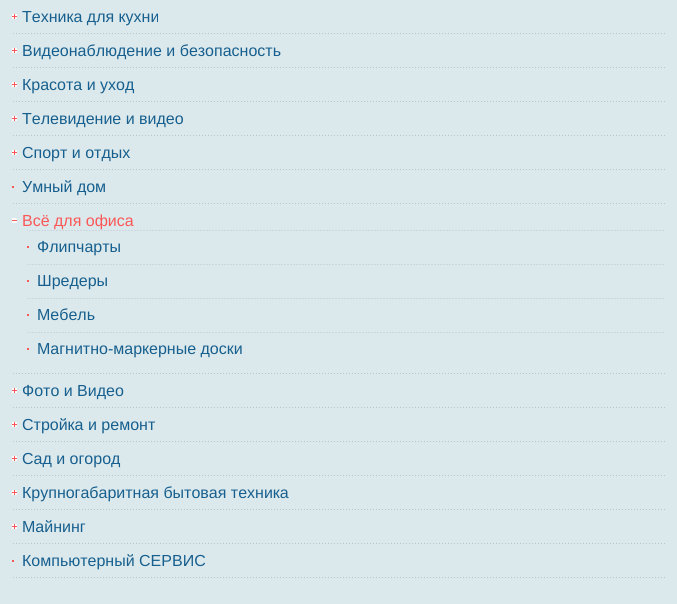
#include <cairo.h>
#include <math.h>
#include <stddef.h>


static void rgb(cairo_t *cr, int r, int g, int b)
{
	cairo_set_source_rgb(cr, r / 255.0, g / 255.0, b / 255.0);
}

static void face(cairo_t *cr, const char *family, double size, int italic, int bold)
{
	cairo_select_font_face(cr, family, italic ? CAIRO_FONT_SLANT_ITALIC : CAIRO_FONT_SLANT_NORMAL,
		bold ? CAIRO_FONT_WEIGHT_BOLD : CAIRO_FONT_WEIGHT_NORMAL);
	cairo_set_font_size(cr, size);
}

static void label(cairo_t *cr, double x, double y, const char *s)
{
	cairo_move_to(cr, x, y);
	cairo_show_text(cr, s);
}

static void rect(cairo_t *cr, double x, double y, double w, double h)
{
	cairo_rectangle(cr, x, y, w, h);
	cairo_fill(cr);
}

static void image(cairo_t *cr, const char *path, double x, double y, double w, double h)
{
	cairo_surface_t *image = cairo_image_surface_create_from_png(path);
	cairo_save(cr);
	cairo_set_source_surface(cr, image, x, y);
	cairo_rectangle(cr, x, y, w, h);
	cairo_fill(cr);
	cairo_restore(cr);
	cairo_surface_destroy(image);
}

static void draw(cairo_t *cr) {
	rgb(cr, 220, 233, 236);
	cairo_paint(cr);
	image(cr, "image0.png", 13, 33, 652, 1);
	image(cr, "image1.png", 12, 14, 5, 5);
	face(cr, "Liberation Sans", 16, 0, 0);
	rgb(cr, 22, 95, 142);
	label(cr, 22, 22, "Техника для кухни");
	image(cr, "image0.png", 13, 67, 652, 1);
	image(cr, "image1.png", 12, 48, 5, 5);
	label(cr, 22, 56, "Видеонаблюдение и безопасность");
	image(cr, "image0.png", 13, 101, 652, 1);
	image(cr, "image1.png", 12, 82, 5, 5);
	label(cr, 22, 90, "Красота и уход");
	image(cr, "image0.png", 13, 135, 652, 1);
	image(cr, "image1.png", 12, 116, 5, 5);
	label(cr, 22, 124, "Телевидение и видео");
	image(cr, "image0.png", 13, 169, 652, 1);
	image(cr, "image1.png", 12, 150, 5, 5);
	label(cr, 22, 158, "Спорт и отдых");
	image(cr, "image0.png", 13, 203, 652, 1);
	rgb(cr, 250, 87, 87);
	rect(cr, 12, 186, 2, 2);
	rgb(cr, 22, 95, 142);
	label(cr, 22, 192, "Умный дом");
	image(cr, "image0.png", 13, 373, 652, 1);
	image(cr, "image2.png", 12, 218, 5, 5);
	rgb(cr, 250, 87, 87);
	label(cr, 22, 226, "Всё для офиса");
	image(cr, "image3.png", 27, 230, 637, 1);
	rect(cr, 27, 246, 2, 2);
	rgb(cr, 22, 95, 142);
	label(cr, 37, 252, "Флипчарты");
	image(cr, "image3.png", 27, 264, 637, 1);
	rgb(cr, 250, 87, 87);
	rect(cr, 27, 280, 2, 2);
	rgb(cr, 22, 95, 142);
	label(cr, 37, 286, "Шредеры");
	image(cr, "image3.png", 27, 298, 637, 1);
	rgb(cr, 250, 87, 87);
	rect(cr, 27, 314, 2, 2);
	rgb(cr, 22, 95, 142);
	label(cr, 37, 320, "Мебель");
	image(cr, "image3.png", 27, 332, 637, 1);
	rgb(cr, 250, 87, 87);
	rect(cr, 27, 348, 2, 2);
	rgb(cr, 22, 95, 142);
	label(cr, 37, 354, "Магнитно-маркерные доски");
	image(cr, "image0.png", 13, 407, 652, 1);
	image(cr, "image1.png", 12, 388, 5, 5);
	label(cr, 22, 396, "Фото и Видео");
	image(cr, "image0.png", 13, 441, 652, 1);
	image(cr, "image1.png", 12, 422, 5, 5);
	label(cr, 22, 430, "Стройка и ремонт");
	image(cr, "image0.png", 13, 475, 652, 1);
	image(cr, "image1.png", 12, 456, 5, 5);
	label(cr, 22, 464, "Сад и огород");
	image(cr, "image0.png", 13, 509, 652, 1);
	image(cr, "image1.png", 12, 490, 5, 5);
	label(cr, 22, 498, "Крупногабаритная бытовая техника");
	image(cr, "image0.png", 13, 543, 652, 1);
	image(cr, "image1.png", 12, 524, 5, 5);
	label(cr, 22, 532, "Майнинг");
	image(cr, "image0.png", 13, 577, 652, 1);
	rgb(cr, 250, 87, 87);
	rect(cr, 12, 560, 2, 2);
	rgb(cr, 22, 95, 142);
	label(cr, 22, 566, "Компьютерный СЕРВИС");
}

int main(void) {
	cairo_surface_t *surface = cairo_image_surface_create(CAIRO_FORMAT_RGB24, 677, 604);
	cairo_t *cr = cairo_create(surface);
	cairo_font_options_t *options = cairo_font_options_create();
	cairo_font_options_set_hint_metrics(options, CAIRO_HINT_METRICS_OFF);
	cairo_font_options_set_hint_style(options, CAIRO_HINT_STYLE_NONE);
	cairo_set_font_options(cr, options);
	cairo_set_miter_limit(cr, 4);
	draw(cr);
	cairo_surface_write_to_png(surface, "render.png");
	cairo_font_options_destroy(options);
	cairo_destroy(cr);
	cairo_surface_destroy(surface);
	return 0;
}
